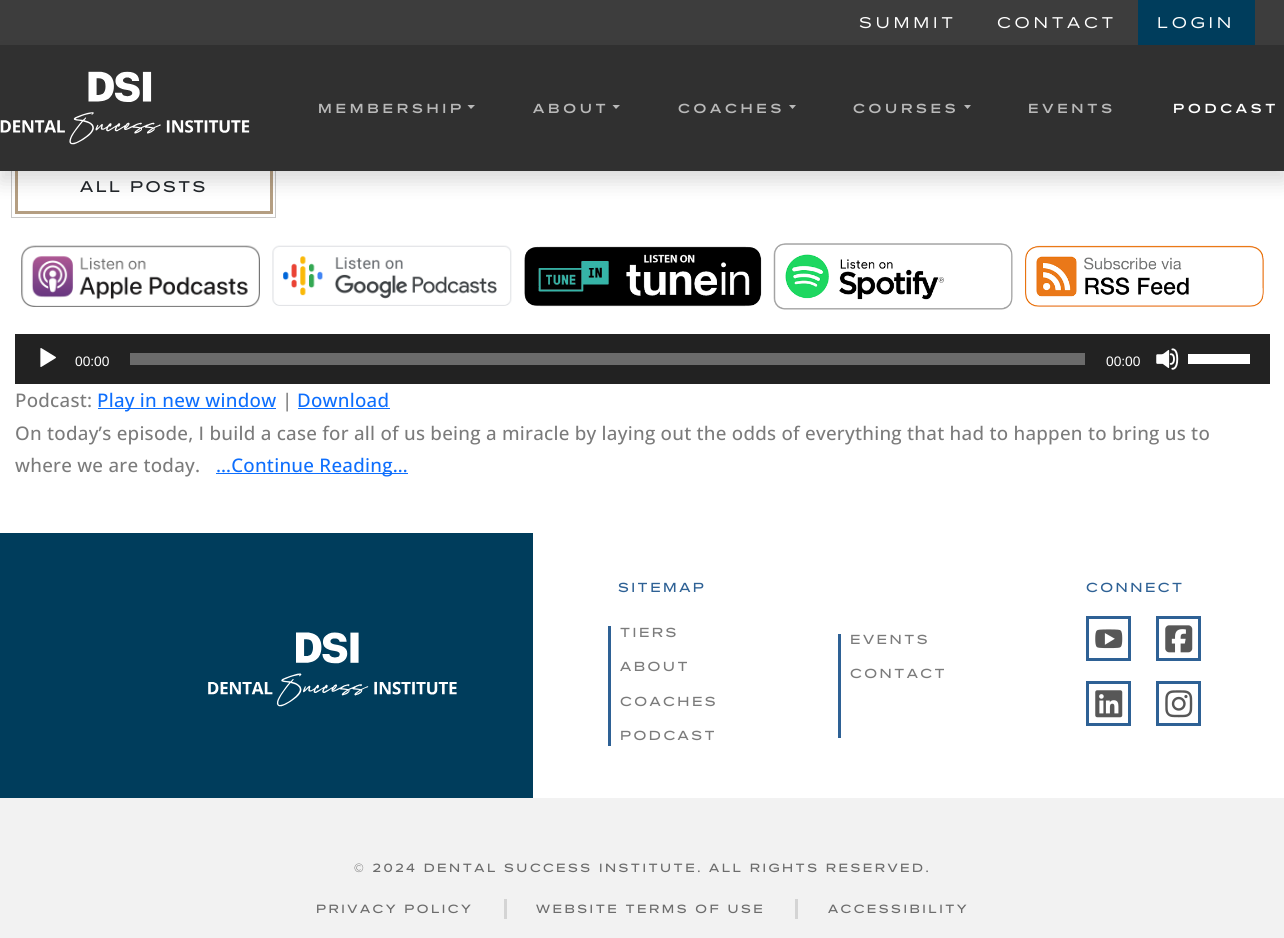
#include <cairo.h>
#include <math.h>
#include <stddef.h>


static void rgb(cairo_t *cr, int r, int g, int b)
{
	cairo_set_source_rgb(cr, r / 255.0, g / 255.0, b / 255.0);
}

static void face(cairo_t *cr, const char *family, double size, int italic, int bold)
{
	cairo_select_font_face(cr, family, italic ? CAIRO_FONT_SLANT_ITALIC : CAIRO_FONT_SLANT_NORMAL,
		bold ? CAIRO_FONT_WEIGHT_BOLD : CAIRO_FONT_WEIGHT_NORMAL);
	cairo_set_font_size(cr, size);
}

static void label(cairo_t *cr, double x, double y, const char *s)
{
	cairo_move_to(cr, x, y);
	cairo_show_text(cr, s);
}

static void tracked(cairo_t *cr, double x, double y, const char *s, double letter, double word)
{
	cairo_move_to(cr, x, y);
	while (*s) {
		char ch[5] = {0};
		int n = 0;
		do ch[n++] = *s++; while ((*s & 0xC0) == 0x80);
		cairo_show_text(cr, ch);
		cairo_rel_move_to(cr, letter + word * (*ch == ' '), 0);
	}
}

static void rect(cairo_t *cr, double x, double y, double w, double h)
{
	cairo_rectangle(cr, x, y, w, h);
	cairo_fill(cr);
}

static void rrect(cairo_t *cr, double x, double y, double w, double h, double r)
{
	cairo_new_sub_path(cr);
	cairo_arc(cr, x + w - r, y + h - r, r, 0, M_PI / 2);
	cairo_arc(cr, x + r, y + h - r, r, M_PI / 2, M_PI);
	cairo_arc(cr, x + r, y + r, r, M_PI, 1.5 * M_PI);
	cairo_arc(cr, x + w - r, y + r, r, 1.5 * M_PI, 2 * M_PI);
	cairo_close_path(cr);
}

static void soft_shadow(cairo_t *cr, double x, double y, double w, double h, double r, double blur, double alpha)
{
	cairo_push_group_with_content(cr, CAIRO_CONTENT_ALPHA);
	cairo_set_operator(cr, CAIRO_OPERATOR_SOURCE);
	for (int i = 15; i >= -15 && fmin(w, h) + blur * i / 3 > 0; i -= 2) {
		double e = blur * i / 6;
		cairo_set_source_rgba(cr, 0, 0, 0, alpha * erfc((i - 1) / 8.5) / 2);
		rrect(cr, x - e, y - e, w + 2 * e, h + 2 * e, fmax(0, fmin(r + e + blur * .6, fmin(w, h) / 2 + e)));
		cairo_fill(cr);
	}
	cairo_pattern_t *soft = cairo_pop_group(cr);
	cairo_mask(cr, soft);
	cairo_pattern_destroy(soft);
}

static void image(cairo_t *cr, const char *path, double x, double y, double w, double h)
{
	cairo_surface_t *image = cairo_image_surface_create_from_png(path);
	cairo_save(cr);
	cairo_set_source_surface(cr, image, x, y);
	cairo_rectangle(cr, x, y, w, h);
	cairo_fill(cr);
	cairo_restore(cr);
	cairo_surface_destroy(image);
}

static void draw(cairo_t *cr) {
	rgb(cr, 255, 255, 255);
	cairo_paint(cr);
	rgb(cr, 61, 61, 61);
	rect(cr, 0, 0, 1284, 45);
	face(cr, "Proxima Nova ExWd", 16.25, 0, 0);
	rgb(cr, 255, 255, 255);
	tracked(cr, 859, 28, "SUMMIT", 3.75, 0);
	tracked(cr, 997, 28, "CONTACT", 3.75, 0);
	rgb(cr, 0, 61, 92);
	rect(cr, 1138, 0, 117, 45);
	rgb(cr, 255, 255, 255);
	tracked(cr, 1157, 28, "LOGIN", 3.75, 0);
	cairo_rectangle(cr, 16.5, 161.5, 255, 51);
	rgb(cr, 180, 158, 130);
	cairo_set_line_width(cr, 3);
	cairo_stroke(cr);
	cairo_rectangle(cr, 11.5, 156.5, 264, 61);
	rgb(cr, 200, 200, 200);
	cairo_set_line_width(cr, 1);
	cairo_stroke(cr);
	rgb(cr, 0, 0, 0);
	soft_shadow(cr, 0, 55, 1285, 126, 0, 10, 0.15);
	rgb(cr, 48, 48, 48);
	rect(cr, 0, 45, 1284, 126);
	image(cr, "image0.png", 0, 71, 250, 74);
	face(cr, "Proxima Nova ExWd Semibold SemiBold", 13.75, 0, 0);
	rgb(cr, 185, 185, 185);
	tracked(cr, 318, 113, "MEMBERSHIP", 3.75, 0);
	cairo_new_path(cr);
	cairo_move_to(cr, 467.5, 105);
	cairo_line_to(cr, 475, 105);
	cairo_line_to(cr, 471, 109);
	cairo_close_path(cr);
	cairo_fill(cr);
	tracked(cr, 533, 113, "ABOUT", 3.75, 0);
	cairo_new_path(cr);
	cairo_move_to(cr, 612.5, 105);
	cairo_line_to(cr, 620, 105);
	cairo_line_to(cr, 616, 109);
	cairo_close_path(cr);
	cairo_fill(cr);
	tracked(cr, 678, 113, "COACHES", 3.75, 0);
	cairo_new_path(cr);
	cairo_move_to(cr, 789, 105);
	cairo_line_to(cr, 796, 105);
	cairo_line_to(cr, 792.5, 109);
	cairo_close_path(cr);
	cairo_fill(cr);
	tracked(cr, 853, 113, "COURSES", 3.75, 0);
	cairo_new_path(cr);
	cairo_move_to(cr, 964, 105);
	cairo_line_to(cr, 971, 105);
	cairo_line_to(cr, 967.5, 109);
	cairo_close_path(cr);
	cairo_fill(cr);
	tracked(cr, 1028, 113, "EVENTS", 3.75, 0);
	rgb(cr, 255, 255, 255);
	tracked(cr, 1173, 113, "PODCAST", 3.75, 0);
	face(cr, "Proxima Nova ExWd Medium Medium", 16.25, 0, 0);
	rgb(cr, 33, 37, 41);
	tracked(cr, 80, 192, "ALL POSTS", 2.5, 0);
	image(cr, "image1.png", 21, 245, 239, 62);
	image(cr, "image2.png", 272, 245, 240, 61);
	image(cr, "image3.png", 524, 246, 238, 61);
	image(cr, "image4.png", 773, 243, 240, 67);
	image(cr, "image5.png", 1025, 245, 239, 62);
	rgb(cr, 34, 34, 34);
	rect(cr, 15, 334, 1255, 50);
	image(cr, "image6.png", 40, 348, 16, 19);
	face(cr, "Liberation Sans", 13.75, 0, 0);
	rgb(cr, 255, 255, 255);
	label(cr, 75, 366, "00:00");
	rgb(cr, 107, 107, 107);
	rect(cr, 130, 353, 955, 12);
	rgb(cr, 255, 255, 255);
	label(cr, 1106, 366, "00:00");
	image(cr, "image7.png", 1156, 348, 23, 22);
	rect(cr, 1188, 354, 62, 10);
	face(cr, "Open Sans Medium", 18.75, 0, 0);
	rgb(cr, 123, 123, 123);
	tracked(cr, 15, 407, "Podcast:", 0.25, 0);
	rgb(cr, 13, 110, 253);
	rect(cr, 98, 408, 178, 1);
	tracked(cr, 97, 407, "Play in new window", 0.25, 0);
	rgb(cr, 123, 123, 123);
	tracked(cr, 282, 407, "|", 0.25, 0);
	rgb(cr, 13, 110, 253);
	tracked(cr, 297, 407, "Download", 0.25, 0);
	rect(cr, 298, 408, 92, 1);
	rgb(cr, 123, 123, 123);
	tracked(cr, 15, 440, "On today’s episode, I build a case for all of us being a miracle by laying out the odds of everything that had to happen to bring us to", 0.25, 0);
	tracked(cr, 15, 472, "where we are today.", 0.25, 0);
	rgb(cr, 13, 110, 253);
	rect(cr, 216, 473, 192, 1);
	tracked(cr, 216, 472, "…Continue Reading…", 0.25, 0);
	rgb(cr, 0, 61, 92);
	rect(cr, 0, 533, 533, 265);
	image(cr, "image8.png", 208, 632, 249, 75);
	face(cr, "Proxima Nova ExWd Medium Medium", 13.75, 0, 0);
	rgb(cr, 46, 97, 149);
	tracked(cr, 618, 592, "SITEMAP", 2.5, 0);
	rect(cr, 608, 626, 3, 120);
	rgb(cr, 123, 123, 123);
	tracked(cr, 620, 637, "TIERS", 2.5, 0);
	tracked(cr, 620, 671, "ABOUT", 2.5, 0);
	tracked(cr, 620, 706, "COACHES", 2.5, 0);
	tracked(cr, 620, 740, "PODCAST", 2.5, 0);
	rgb(cr, 46, 97, 149);
	tracked(cr, 1086, 592, "CONNECT", 2.5, 0);
	cairo_rectangle(cr, 1087.5, 617.5, 42, 42);
	cairo_set_line_width(cr, 3);
	cairo_stroke(cr);
	cairo_rectangle(cr, 1157.5, 617.5, 42, 42);
	cairo_stroke(cr);
	image(cr, "image9.png", 1095, 629, 28, 20);
	image(cr, "image10.png", 1165, 625, 28, 28);
	cairo_rectangle(cr, 1087.5, 682.5, 42, 42);
	cairo_stroke(cr);
	cairo_rectangle(cr, 1157.5, 682.5, 42, 42);
	cairo_stroke(cr);
	image(cr, "image11.png", 1095, 690, 28, 28);
	image(cr, "image12.png", 1165, 690, 28, 28);
	rect(cr, 838, 634, 3, 104);
	rgb(cr, 123, 123, 123);
	tracked(cr, 850, 644, "EVENTS", 2.5, 0);
	tracked(cr, 850, 678, "CONTACT", 2.5, 0);
	rgb(cr, 242, 242, 242);
	rect(cr, 0, 798, 1284, 140);
	face(cr, "Proxima Nova ExWd Medium Medium", 12.5, 0, 0);
	rgb(cr, 108, 108, 108);
	tracked(cr, 354, 872, "© 2024 DENTAL SUCCESS INSTITUTE. ALL RIGHTS RESERVED.", 2.5, 0);
	tracked(cr, 316, 913, "PRIVACY POLICY", 2.5, 0);
	rgb(cr, 212, 212, 212);
	rect(cr, 504, 899, 3, 20);
	rgb(cr, 108, 108, 108);
	tracked(cr, 536, 913, "WEBSITE TERMS OF USE", 2.5, 0);
	rgb(cr, 212, 212, 212);
	rect(cr, 795, 899, 3, 20);
	rgb(cr, 108, 108, 108);
	tracked(cr, 828, 913, "ACCESSIBILITY", 2.5, 0);
}

int main(void) {
	cairo_surface_t *surface = cairo_image_surface_create(CAIRO_FORMAT_RGB24, 1284, 938);
	cairo_t *cr = cairo_create(surface);
	cairo_font_options_t *options = cairo_font_options_create();
	cairo_font_options_set_hint_metrics(options, CAIRO_HINT_METRICS_OFF);
	cairo_font_options_set_hint_style(options, CAIRO_HINT_STYLE_NONE);
	cairo_set_font_options(cr, options);
	cairo_set_miter_limit(cr, 4);
	draw(cr);
	cairo_surface_write_to_png(surface, "render.png");
	cairo_font_options_destroy(options);
	cairo_destroy(cr);
	cairo_surface_destroy(surface);
	return 0;
}
